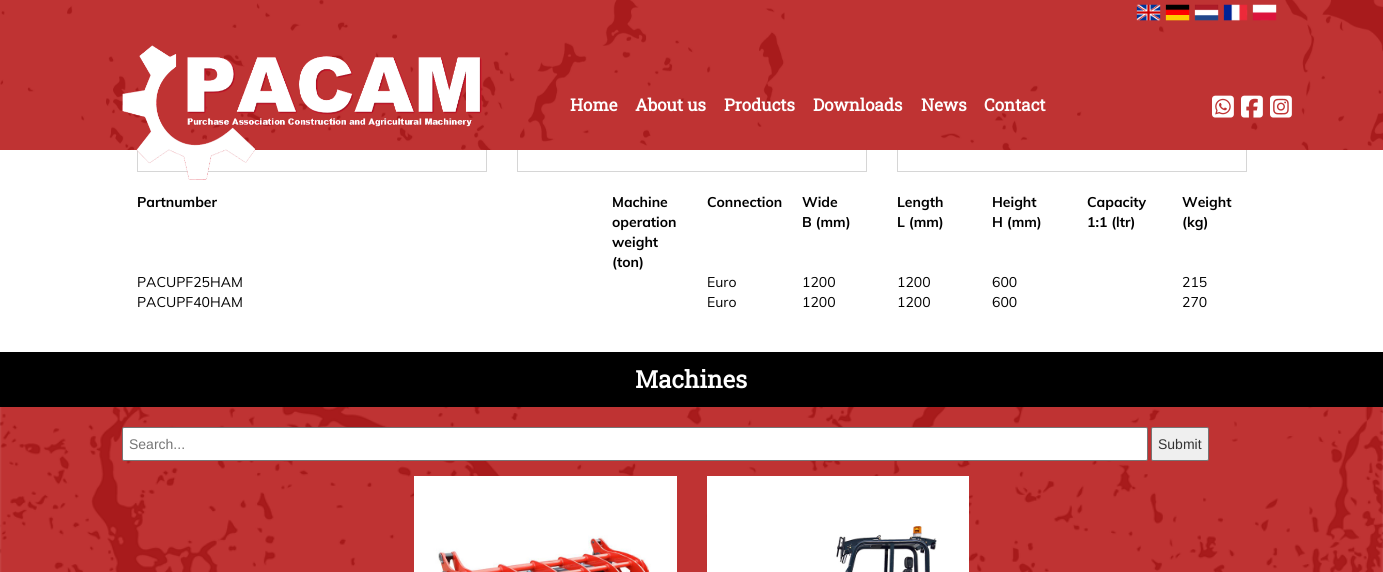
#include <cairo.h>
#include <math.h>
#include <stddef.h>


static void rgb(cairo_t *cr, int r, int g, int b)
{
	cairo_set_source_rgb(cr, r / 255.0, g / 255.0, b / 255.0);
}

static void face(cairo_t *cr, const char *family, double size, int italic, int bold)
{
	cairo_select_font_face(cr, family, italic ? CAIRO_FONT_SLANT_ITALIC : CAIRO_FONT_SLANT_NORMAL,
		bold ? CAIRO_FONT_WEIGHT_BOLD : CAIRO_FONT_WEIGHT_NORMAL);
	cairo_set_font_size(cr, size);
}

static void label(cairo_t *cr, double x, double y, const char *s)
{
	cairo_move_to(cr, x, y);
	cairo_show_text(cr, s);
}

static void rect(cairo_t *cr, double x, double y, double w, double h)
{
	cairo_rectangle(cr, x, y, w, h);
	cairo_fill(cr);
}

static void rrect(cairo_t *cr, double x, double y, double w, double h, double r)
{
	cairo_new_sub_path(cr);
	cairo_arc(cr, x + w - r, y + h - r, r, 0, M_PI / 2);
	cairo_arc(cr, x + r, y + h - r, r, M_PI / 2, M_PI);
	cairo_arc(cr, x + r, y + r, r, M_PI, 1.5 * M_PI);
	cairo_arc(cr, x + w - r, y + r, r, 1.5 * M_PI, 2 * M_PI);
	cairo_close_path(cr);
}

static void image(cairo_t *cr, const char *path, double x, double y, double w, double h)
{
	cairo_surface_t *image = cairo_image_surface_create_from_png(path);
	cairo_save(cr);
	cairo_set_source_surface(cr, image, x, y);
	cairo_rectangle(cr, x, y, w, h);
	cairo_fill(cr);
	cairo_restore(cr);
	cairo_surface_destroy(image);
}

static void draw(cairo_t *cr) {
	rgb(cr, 255, 255, 255);
	cairo_paint(cr);
	cairo_rectangle(cr, 137.5, -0.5, 349, 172);
	rgb(cr, 214, 214, 214);
	cairo_set_line_width(cr, 1);
	cairo_stroke(cr);
	cairo_rectangle(cr, 517.5, -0.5, 349, 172);
	cairo_stroke(cr);
	cairo_rectangle(cr, 897.5, -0.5, 349, 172);
	cairo_stroke(cr);
	image(cr, "image0.png", 0, 0, 1383, 150);
	image(cr, "image1.png", 1136, 4, 25, 17);
	image(cr, "image2.png", 1165, 4, 25, 17);
	image(cr, "image3.png", 1194, 4, 25, 17);
	image(cr, "image4.png", 1223, 4, 25, 17);
	image(cr, "image5.png", 1252, 4, 25, 17);
	image(cr, "image6.png", 122, 45, 360, 135);
	face(cr, "Roboto Slab", 17, 0, 1);
	rgb(cr, 255, 255, 255);
	label(cr, 570, 111, "Home");
	label(cr, 635, 111, "About us");
	label(cr, 724, 111, "Products");
	label(cr, 813, 111, "Downloads");
	label(cr, 921, 111, "News");
	label(cr, 984, 111, "Contact");
	image(cr, "image7.png", 1212, 95, 22, 23);
	image(cr, "image8.png", 1241, 95, 22, 23);
	image(cr, "image9.png", 1270, 95, 22, 23);
	face(cr, "Muli", 14, 0, 1);
	rgb(cr, 0, 0, 0);
	label(cr, 137, 207, "Partnumber");
	label(cr, 612, 207, "Machine");
	label(cr, 612, 227, "operation");
	label(cr, 612, 247, "weight");
	label(cr, 612, 267, "(ton)");
	label(cr, 707, 207, "Connection");
	label(cr, 802, 207, "Wide");
	label(cr, 802, 227, "B (mm)");
	label(cr, 897, 207, "Length");
	label(cr, 897, 227, "L (mm)");
	label(cr, 992, 207, "Height");
	label(cr, 992, 227, "H (mm)");
	label(cr, 1087, 207, "Capacity");
	label(cr, 1087, 227, "1:1 (ltr)");
	label(cr, 1182, 207, "Weight");
	label(cr, 1182, 227, "(kg)");
	face(cr, "Muli", 14, 0, 0);
	label(cr, 137, 287, "PACUPF25HAM");
	label(cr, 707, 287, "Euro");
	label(cr, 802, 287, "1200");
	label(cr, 897, 287, "1200");
	label(cr, 992, 287, "600");
	label(cr, 1182, 287, "215");
	label(cr, 137, 307, "PACUPF40HAM");
	label(cr, 707, 307, "Euro");
	label(cr, 802, 307, "1200");
	label(cr, 897, 307, "1200");
	label(cr, 992, 307, "600");
	label(cr, 1182, 307, "270");
	rect(cr, 0, 352, 1383, 55);
	face(cr, "Roboto Slab", 24, 0, 1);
	rgb(cr, 255, 255, 255);
	label(cr, 635, 388, "Machines");
	image(cr, "image10.png", 0, 407, 1383, 165);
	rrect(cr, 122.5, 427.5, 1025, 33, 1.5);
	cairo_fill_preserve(cr);
	rgb(cr, 118, 118, 118);
	cairo_stroke(cr);
	face(cr, "Liberation Sans", 14, 0, 0);
	rgb(cr, 117, 117, 117);
	label(cr, 129, 449, "Search...");
	rgb(cr, 239, 239, 239);
	rrect(cr, 1151.5, 427.5, 57, 33, 1.5);
	cairo_fill_preserve(cr);
	rgb(cr, 118, 118, 118);
	cairo_stroke(cr);
	rgb(cr, 51, 51, 51);
	label(cr, 1158, 449, "Submit");
	image(cr, "image11.png", 414, 476, 263, 96);
	image(cr, "image12.png", 707, 476, 262, 96);
}

int main(void) {
	cairo_surface_t *surface = cairo_image_surface_create(CAIRO_FORMAT_RGB24, 1383, 572);
	cairo_t *cr = cairo_create(surface);
	cairo_font_options_t *options = cairo_font_options_create();
	cairo_font_options_set_hint_metrics(options, CAIRO_HINT_METRICS_OFF);
	cairo_font_options_set_hint_style(options, CAIRO_HINT_STYLE_NONE);
	cairo_set_font_options(cr, options);
	cairo_set_miter_limit(cr, 4);
	draw(cr);
	cairo_surface_write_to_png(surface, "render.png");
	cairo_font_options_destroy(options);
	cairo_destroy(cr);
	cairo_surface_destroy(surface);
	return 0;
}
